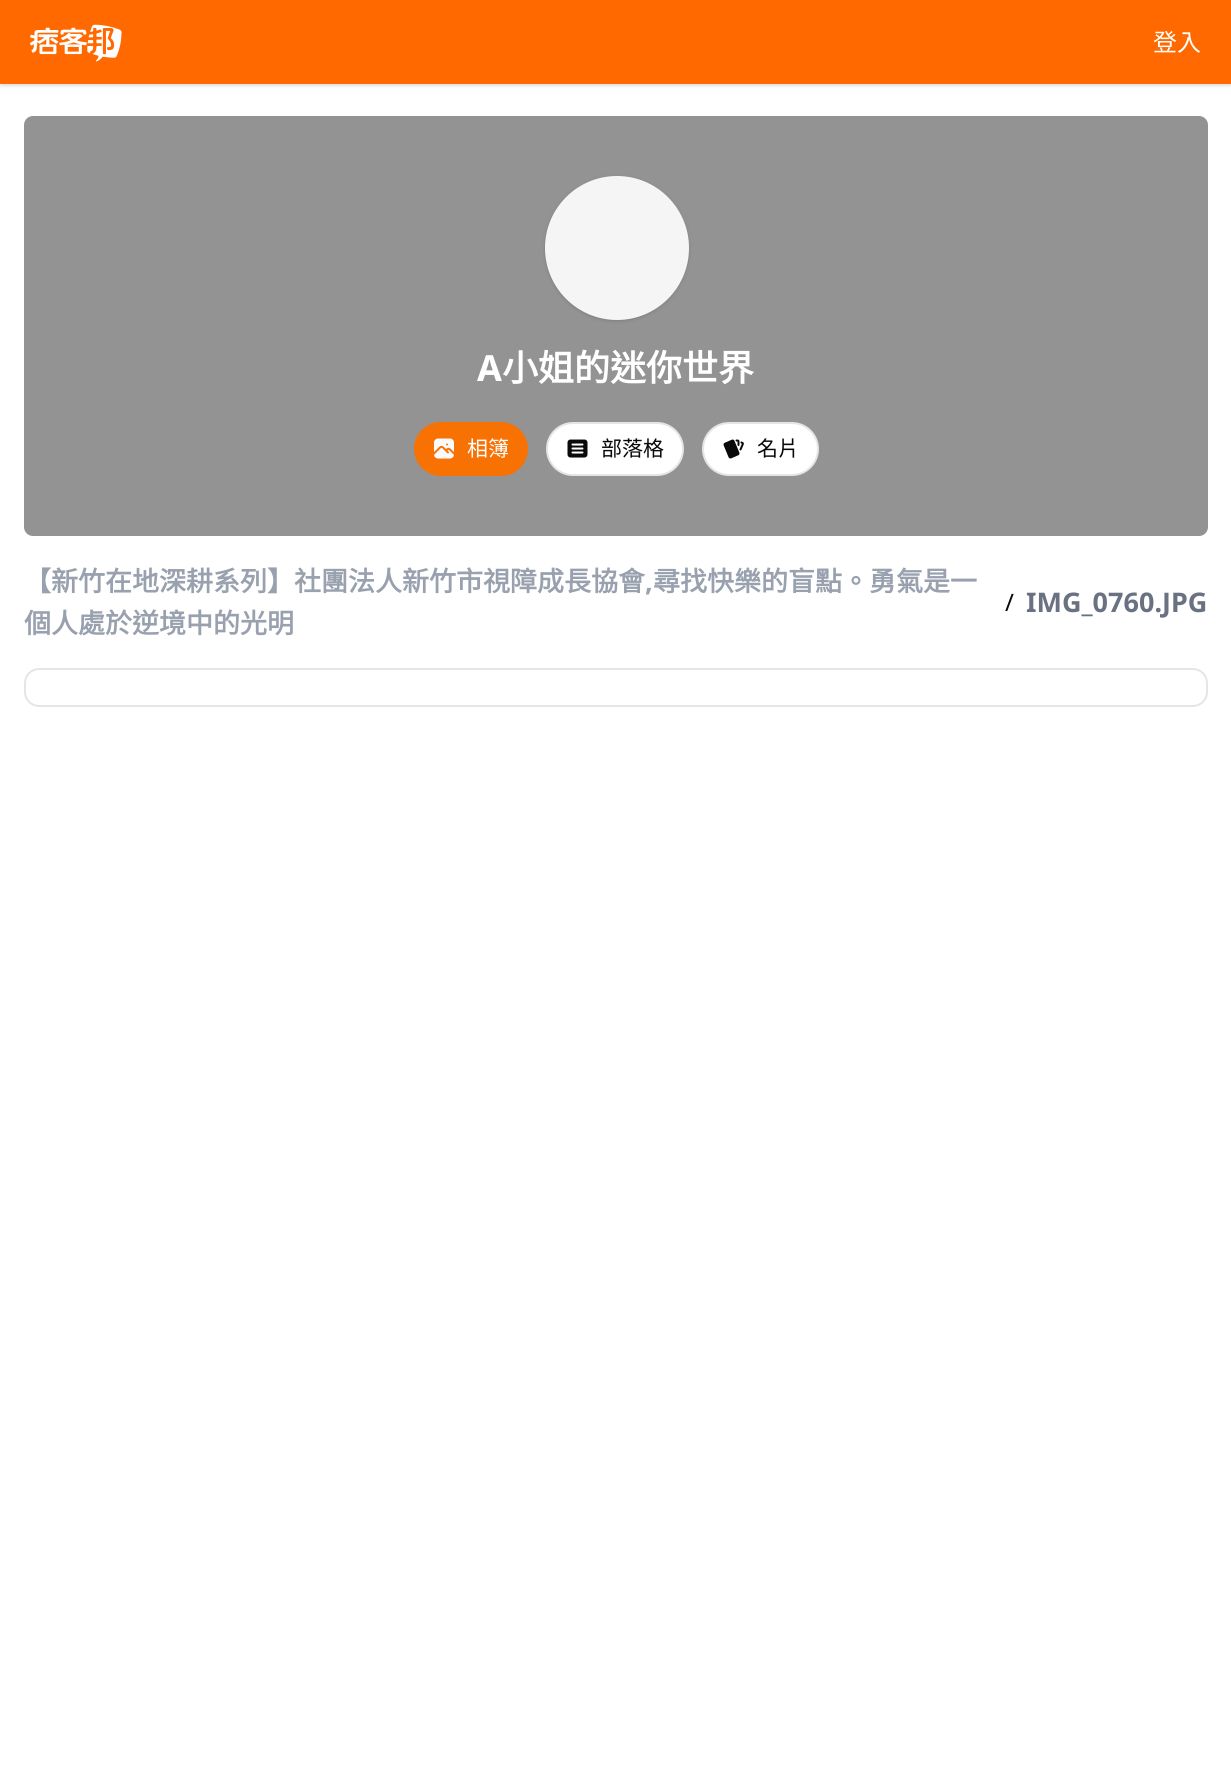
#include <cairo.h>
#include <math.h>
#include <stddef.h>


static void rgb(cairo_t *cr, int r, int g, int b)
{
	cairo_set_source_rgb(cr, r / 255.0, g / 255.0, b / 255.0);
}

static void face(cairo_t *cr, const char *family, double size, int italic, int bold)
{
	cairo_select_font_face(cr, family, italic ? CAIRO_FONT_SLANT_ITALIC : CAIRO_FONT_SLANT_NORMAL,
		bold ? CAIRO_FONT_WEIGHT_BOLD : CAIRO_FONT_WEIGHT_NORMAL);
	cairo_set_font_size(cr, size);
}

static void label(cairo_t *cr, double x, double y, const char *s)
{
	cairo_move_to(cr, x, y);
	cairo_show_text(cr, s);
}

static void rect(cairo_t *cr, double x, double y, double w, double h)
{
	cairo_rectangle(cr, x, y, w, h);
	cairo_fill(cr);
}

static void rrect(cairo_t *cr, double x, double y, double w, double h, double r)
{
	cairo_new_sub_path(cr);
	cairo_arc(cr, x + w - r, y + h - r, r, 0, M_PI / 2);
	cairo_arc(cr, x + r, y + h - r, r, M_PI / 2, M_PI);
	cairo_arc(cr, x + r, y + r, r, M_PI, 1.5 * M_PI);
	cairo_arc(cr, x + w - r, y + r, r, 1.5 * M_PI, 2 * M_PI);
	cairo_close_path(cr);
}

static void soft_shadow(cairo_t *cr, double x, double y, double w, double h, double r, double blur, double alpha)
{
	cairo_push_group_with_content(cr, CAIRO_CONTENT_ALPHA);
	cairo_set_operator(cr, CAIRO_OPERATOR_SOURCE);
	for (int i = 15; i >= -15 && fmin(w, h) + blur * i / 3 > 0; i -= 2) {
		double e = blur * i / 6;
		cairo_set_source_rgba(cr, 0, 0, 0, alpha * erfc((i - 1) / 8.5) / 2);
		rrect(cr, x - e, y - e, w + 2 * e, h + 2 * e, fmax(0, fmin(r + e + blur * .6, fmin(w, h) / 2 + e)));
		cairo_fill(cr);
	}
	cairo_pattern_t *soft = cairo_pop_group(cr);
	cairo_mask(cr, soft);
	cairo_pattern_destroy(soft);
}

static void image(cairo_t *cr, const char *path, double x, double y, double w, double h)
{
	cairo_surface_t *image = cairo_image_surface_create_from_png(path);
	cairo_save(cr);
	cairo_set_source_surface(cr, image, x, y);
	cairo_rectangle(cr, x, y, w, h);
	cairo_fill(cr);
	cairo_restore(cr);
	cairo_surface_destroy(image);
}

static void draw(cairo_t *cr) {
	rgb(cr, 255, 255, 255);
	cairo_paint(cr);
	rgb(cr, 0, 0, 0);
	soft_shadow(cr, 2, 3, 1228, 81, 0, 1.5, 0.1);
	soft_shadow(cr, 0, 2, 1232, 84, 0, 2, 0.1);
	rgb(cr, 255, 105, 0);
	rect(cr, 0, 0, 1231, 84);
	image(cr, "image0.png", 30, 24, 92, 38);
	face(cr, "Noto Sans CJK TC", 24, 0, 0);
	rgb(cr, 255, 255, 255);
	label(cr, 1153, 51, "登入");
	rgb(cr, 245, 245, 245);
	rrect(cr, 24, 116, 1184, 420, 9);
	cairo_fill(cr);
	cairo_set_source_rgba(cr, 0, 0, 0, 0.4);
	rrect(cr, 24, 116, 1184, 420, 9);
	cairo_fill(cr);
	rgb(cr, 0, 0, 0);
	soft_shadow(cr, 546, 179, 141, 141, 70.5, 1.5, 0.1);
	soft_shadow(cr, 545, 177, 144, 144, 72, 2, 0.1);
	rgb(cr, 245, 245, 245);
	cairo_arc(cr, 617, 248, 72, 0, 2 * M_PI);
	cairo_fill(cr);
	face(cr, "Noto Sans", 36, 0, 1);
	rgb(cr, 255, 255, 255);
	label(cr, 477, 381, "A");
	face(cr, "Noto Sans CJK TC", 36, 0, 1);
	label(cr, 502, 381, "小姐的迷你世界");
	rgb(cr, 248, 113, 3);
	rrect(cr, 414, 422, 114, 54, 27);
	cairo_fill(cr);
	image(cr, "image1.png", 434, 438, 20, 21);
	face(cr, "Noto Sans CJK TC", 21, 0, 0);
	rgb(cr, 255, 255, 255);
	label(cr, 467, 456, "相簿");
	rrect(cr, 547, 423, 136, 52, 26);
	cairo_fill_preserve(cr);
	rgb(cr, 229, 229, 229);
	cairo_stroke(cr);
	image(cr, "image2.png", 567, 439, 21, 19);
	rgb(cr, 10, 10, 10);
	label(cr, 601, 456, "部落格");
	rgb(cr, 255, 255, 255);
	rrect(cr, 703, 423, 115, 52, 26);
	cairo_fill_preserve(cr);
	rgb(cr, 229, 229, 229);
	cairo_stroke(cr);
	image(cr, "image3.png", 723, 439, 21, 20);
	rgb(cr, 10, 10, 10);
	label(cr, 757, 456, "名片");
	face(cr, "Noto Sans CJK TC", 27, 0, 1);
	rgb(cr, 153, 161, 175);
	label(cr, 24, 591, "【新竹在地深耕系列】社團法人新竹市視障成長協會");
	face(cr, "Noto Sans", 27, 0, 1);
	label(cr, 645, 591, ",");
	face(cr, "Noto Sans CJK TC", 27, 0, 1);
	label(cr, 653, 591, "尋找快樂的盲點。勇氣是一");
	label(cr, 24, 633, "個人處於逆境中的光明");
	face(cr, "Noto Sans", 24, 0, 0);
	rgb(cr, 10, 10, 10);
	label(cr, 1005, 611, "/");
	face(cr, "Noto Sans", 27, 0, 1);
	rgb(cr, 106, 114, 130);
	label(cr, 1026, 612, "IMG_0760.JPG");
	rrect(cr, 25, 669, 1182, 37, 14);
	rgb(cr, 229, 229, 229);
	cairo_stroke(cr);
}

int main(void) {
	cairo_surface_t *surface = cairo_image_surface_create(CAIRO_FORMAT_RGB24, 1231, 1779);
	cairo_t *cr = cairo_create(surface);
	cairo_font_options_t *options = cairo_font_options_create();
	cairo_font_options_set_hint_metrics(options, CAIRO_HINT_METRICS_OFF);
	cairo_font_options_set_hint_style(options, CAIRO_HINT_STYLE_NONE);
	cairo_set_font_options(cr, options);
	cairo_set_miter_limit(cr, 4);
	draw(cr);
	cairo_surface_write_to_png(surface, "render.png");
	cairo_font_options_destroy(options);
	cairo_destroy(cr);
	cairo_surface_destroy(surface);
	return 0;
}
